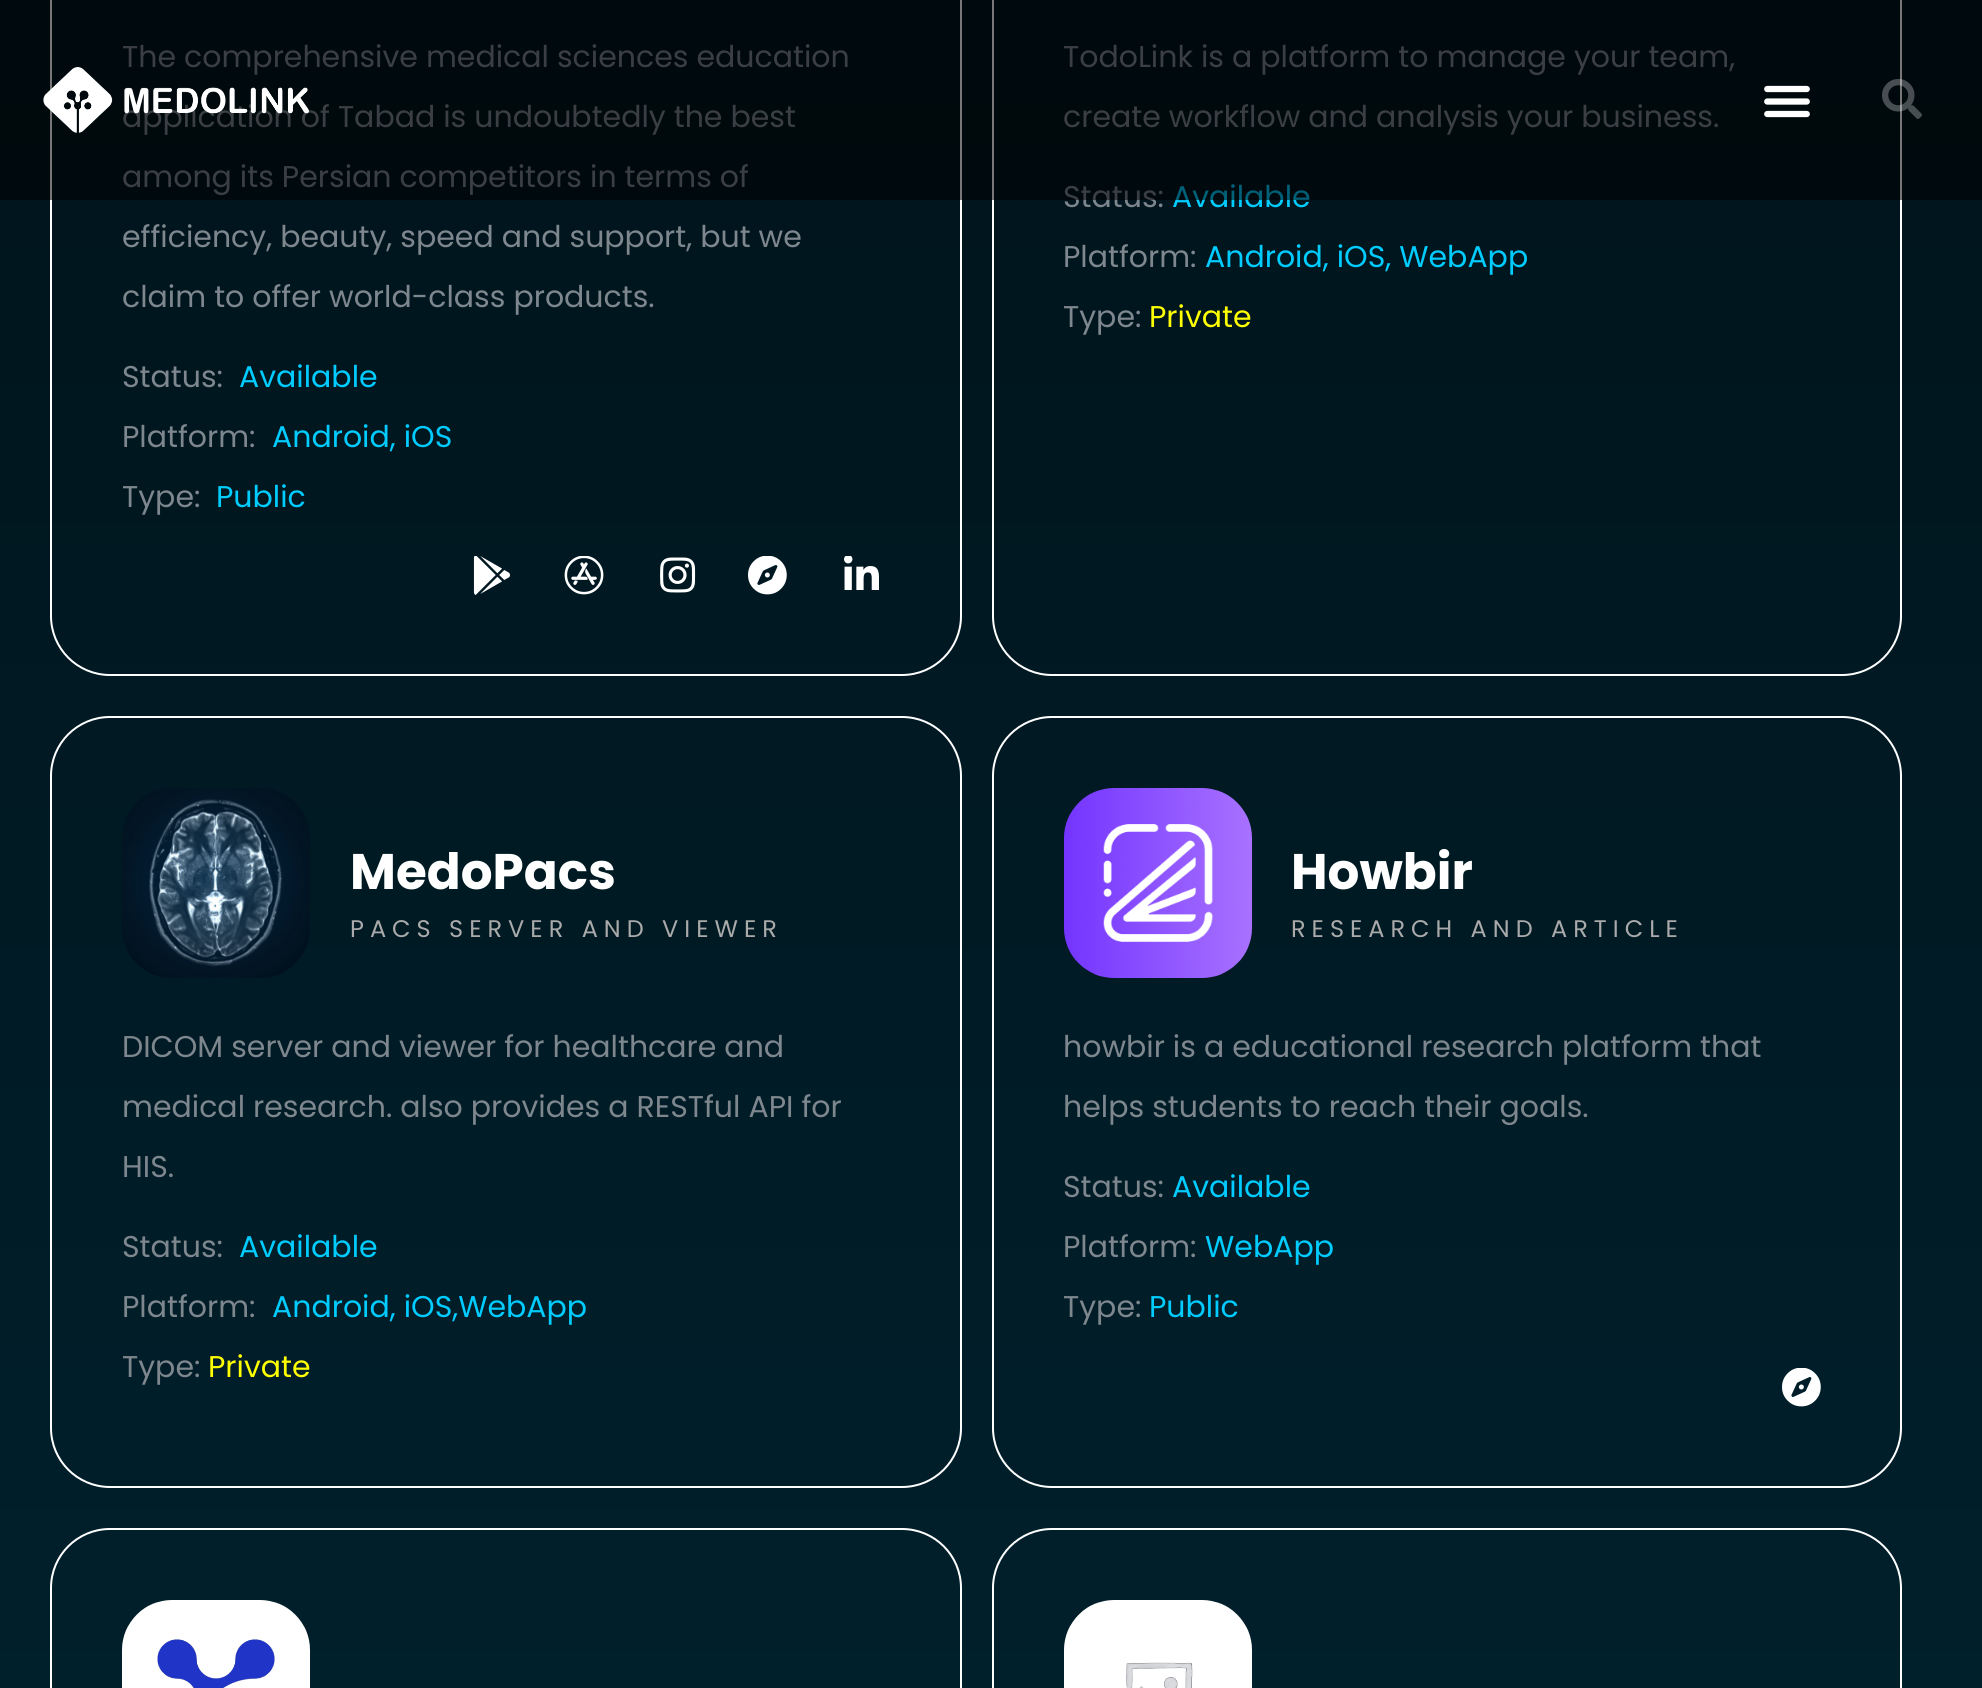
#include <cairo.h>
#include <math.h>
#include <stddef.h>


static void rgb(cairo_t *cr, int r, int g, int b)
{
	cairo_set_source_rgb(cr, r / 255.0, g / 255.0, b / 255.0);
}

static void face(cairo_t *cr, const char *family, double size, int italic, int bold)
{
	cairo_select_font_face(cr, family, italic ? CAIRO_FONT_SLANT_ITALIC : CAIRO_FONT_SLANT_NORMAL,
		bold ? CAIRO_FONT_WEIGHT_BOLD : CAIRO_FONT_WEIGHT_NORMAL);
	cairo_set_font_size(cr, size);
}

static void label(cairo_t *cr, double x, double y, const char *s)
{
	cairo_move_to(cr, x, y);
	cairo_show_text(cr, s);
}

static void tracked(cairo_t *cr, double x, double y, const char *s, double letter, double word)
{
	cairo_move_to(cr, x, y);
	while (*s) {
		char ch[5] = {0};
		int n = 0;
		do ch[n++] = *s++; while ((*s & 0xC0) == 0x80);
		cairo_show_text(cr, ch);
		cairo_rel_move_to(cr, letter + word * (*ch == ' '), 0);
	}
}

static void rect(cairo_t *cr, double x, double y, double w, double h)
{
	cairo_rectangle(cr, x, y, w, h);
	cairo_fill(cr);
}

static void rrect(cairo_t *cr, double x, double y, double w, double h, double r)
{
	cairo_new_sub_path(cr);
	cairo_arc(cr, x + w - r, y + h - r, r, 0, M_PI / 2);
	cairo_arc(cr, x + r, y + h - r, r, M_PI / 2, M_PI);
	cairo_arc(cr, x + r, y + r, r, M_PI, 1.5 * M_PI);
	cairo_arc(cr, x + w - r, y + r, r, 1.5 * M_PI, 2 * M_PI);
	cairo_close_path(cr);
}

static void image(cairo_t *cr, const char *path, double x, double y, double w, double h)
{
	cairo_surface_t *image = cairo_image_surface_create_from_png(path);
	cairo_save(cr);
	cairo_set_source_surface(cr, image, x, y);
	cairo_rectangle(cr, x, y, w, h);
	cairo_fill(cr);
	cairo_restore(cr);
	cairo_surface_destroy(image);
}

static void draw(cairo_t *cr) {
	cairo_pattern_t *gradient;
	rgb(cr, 255, 255, 255);
	cairo_paint(cr);
	gradient = cairo_pattern_create_linear(991, 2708, 991, -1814);
	cairo_pattern_add_color_stop_rgba(gradient, 0, 0, 0.153, 0.212, 1);
	cairo_pattern_add_color_stop_rgba(gradient, 1, 0, 0.027, 0.035, 1);
	cairo_set_source(cr, gradient);
	cairo_pattern_destroy(gradient);
	rect(cr, 0, 0, 1982, 1688);
	rrect(cr, 51, -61, 910, 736, 59);
	rgb(cr, 255, 255, 255);
	cairo_stroke(cr);
	face(cr, "Poppins", 30, 0, 0);
	rgb(cr, 126, 134, 142);
	label(cr, 122, 67, "The comprehensive medical sciences education");
	label(cr, 122, 127, "application of Tabad is undoubtedly the best");
	label(cr, 122, 187, "among its Persian competitors in terms of");
	rrect(cr, 993, -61, 908, 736, 59);
	rgb(cr, 255, 255, 255);
	cairo_stroke(cr);
	rgb(cr, 126, 134, 142);
	label(cr, 1063, 67, "TodoLink is a platform to manage your team,");
	label(cr, 1063, 127, "create workflow and analysis your business.");
	label(cr, 1063, 207, "Status:");
	rgb(cr, 0, 204, 255);
	label(cr, 1172, 207, "Available");
	cairo_set_source_rgba(cr, 0, 0, 0, 0.53);
	rect(cr, 0, 0, 1982, 200);
	image(cr, "image0.png", 43, 67, 266, 67);
	image(cr, "image1.png", 1764, 85, 46, 33);
	image(cr, "image2.png", 1882, 79, 40, 40);
	rgb(cr, 126, 134, 142);
	label(cr, 122, 247, "efficiency, beauty, speed and support, but we");
	label(cr, 122, 307, "claim to offer world-class products.");
	label(cr, 122, 387, "Status:");
	rgb(cr, 0, 204, 255);
	label(cr, 239, 387, "Available");
	rgb(cr, 126, 134, 142);
	label(cr, 122, 447, "Platform:");
	rgb(cr, 0, 204, 255);
	label(cr, 272, 447, "Android, iOS");
	rgb(cr, 126, 134, 142);
	label(cr, 122, 507, "Type:");
	rgb(cr, 0, 204, 255);
	label(cr, 216, 507, "Public");
	image(cr, "image3.png", 473, 556, 37, 39);
	image(cr, "image4.png", 564, 556, 40, 39);
	image(cr, "image5.png", 660, 557, 36, 36);
	image(cr, "image6.png", 748, 556, 39, 39);
	image(cr, "image7.png", 844, 556, 35, 34);
	rgb(cr, 126, 134, 142);
	label(cr, 1063, 267, "Platform:");
	rgb(cr, 0, 204, 255);
	label(cr, 1205, 267, "Android, iOS, WebApp");
	rgb(cr, 126, 134, 142);
	label(cr, 1063, 327, "Type:");
	rgb(cr, 255, 255, 0);
	label(cr, 1149, 327, "Private");
	rrect(cr, 51, 717, 910, 770, 59);
	rgb(cr, 255, 255, 255);
	cairo_stroke(cr);
	image(cr, "image8.png", 122, 788, 188, 190);
	face(cr, "Poppins", 50, 0, 1);
	label(cr, 350, 889, "MedoPacs");
	face(cr, "Poppins", 24, 0, 0);
	rgb(cr, 170, 170, 170);
	tracked(cr, 350, 937, "PACS SERVER AND VIEWER", 6, 0);
	face(cr, "Poppins", 30, 0, 0);
	rgb(cr, 126, 134, 142);
	label(cr, 122, 1057, "DICOM server and viewer for healthcare and");
	label(cr, 122, 1117, "medical research. also provides a RESTful API for");
	label(cr, 122, 1177, "HIS.");
	label(cr, 122, 1257, "Status:");
	rgb(cr, 0, 204, 255);
	label(cr, 239, 1257, "Available");
	rgb(cr, 126, 134, 142);
	label(cr, 122, 1317, "Platform:");
	rgb(cr, 0, 204, 255);
	label(cr, 272, 1317, "Android, iOS,WebApp");
	rgb(cr, 126, 134, 142);
	label(cr, 122, 1377, "Type:");
	rgb(cr, 255, 255, 0);
	label(cr, 208, 1377, "Private");
	rrect(cr, 993, 717, 908, 770, 59);
	rgb(cr, 255, 255, 255);
	cairo_stroke(cr);
	image(cr, "image9.png", 1064, 788, 188, 190);
	face(cr, "Poppins", 50, 0, 1);
	label(cr, 1291, 889, "Howbir");
	face(cr, "Poppins", 24, 0, 0);
	rgb(cr, 170, 170, 170);
	tracked(cr, 1291, 937, "RESEARCH AND ARTICLE", 6, 0);
	face(cr, "Poppins", 30, 0, 0);
	rgb(cr, 126, 134, 142);
	label(cr, 1063, 1057, "howbir is a educational research platform that");
	label(cr, 1063, 1117, "helps students to reach their goals.");
	label(cr, 1063, 1197, "Status:");
	rgb(cr, 0, 204, 255);
	label(cr, 1172, 1197, "Available");
	rgb(cr, 126, 134, 142);
	label(cr, 1063, 1257, "Platform:");
	rgb(cr, 0, 204, 255);
	label(cr, 1205, 1257, "WebApp");
	rgb(cr, 126, 134, 142);
	label(cr, 1063, 1317, "Type:");
	rgb(cr, 0, 204, 255);
	label(cr, 1149, 1317, "Public");
	image(cr, "image10.png", 1782, 1368, 39, 39);
	rrect(cr, 51, 1529, 910, 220, 59);
	rgb(cr, 255, 255, 255);
	cairo_stroke(cr);
	image(cr, "image11.png", 122, 1600, 188, 88);
	rrect(cr, 993, 1529, 908, 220, 59);
	cairo_stroke(cr);
	image(cr, "image12.png", 1064, 1600, 188, 88);
}

int main(void) {
	cairo_surface_t *surface = cairo_image_surface_create(CAIRO_FORMAT_RGB24, 1982, 1688);
	cairo_t *cr = cairo_create(surface);
	cairo_font_options_t *options = cairo_font_options_create();
	cairo_font_options_set_hint_metrics(options, CAIRO_HINT_METRICS_OFF);
	cairo_font_options_set_hint_style(options, CAIRO_HINT_STYLE_NONE);
	cairo_set_font_options(cr, options);
	cairo_set_miter_limit(cr, 4);
	draw(cr);
	cairo_surface_write_to_png(surface, "render.png");
	cairo_font_options_destroy(options);
	cairo_destroy(cr);
	cairo_surface_destroy(surface);
	return 0;
}
